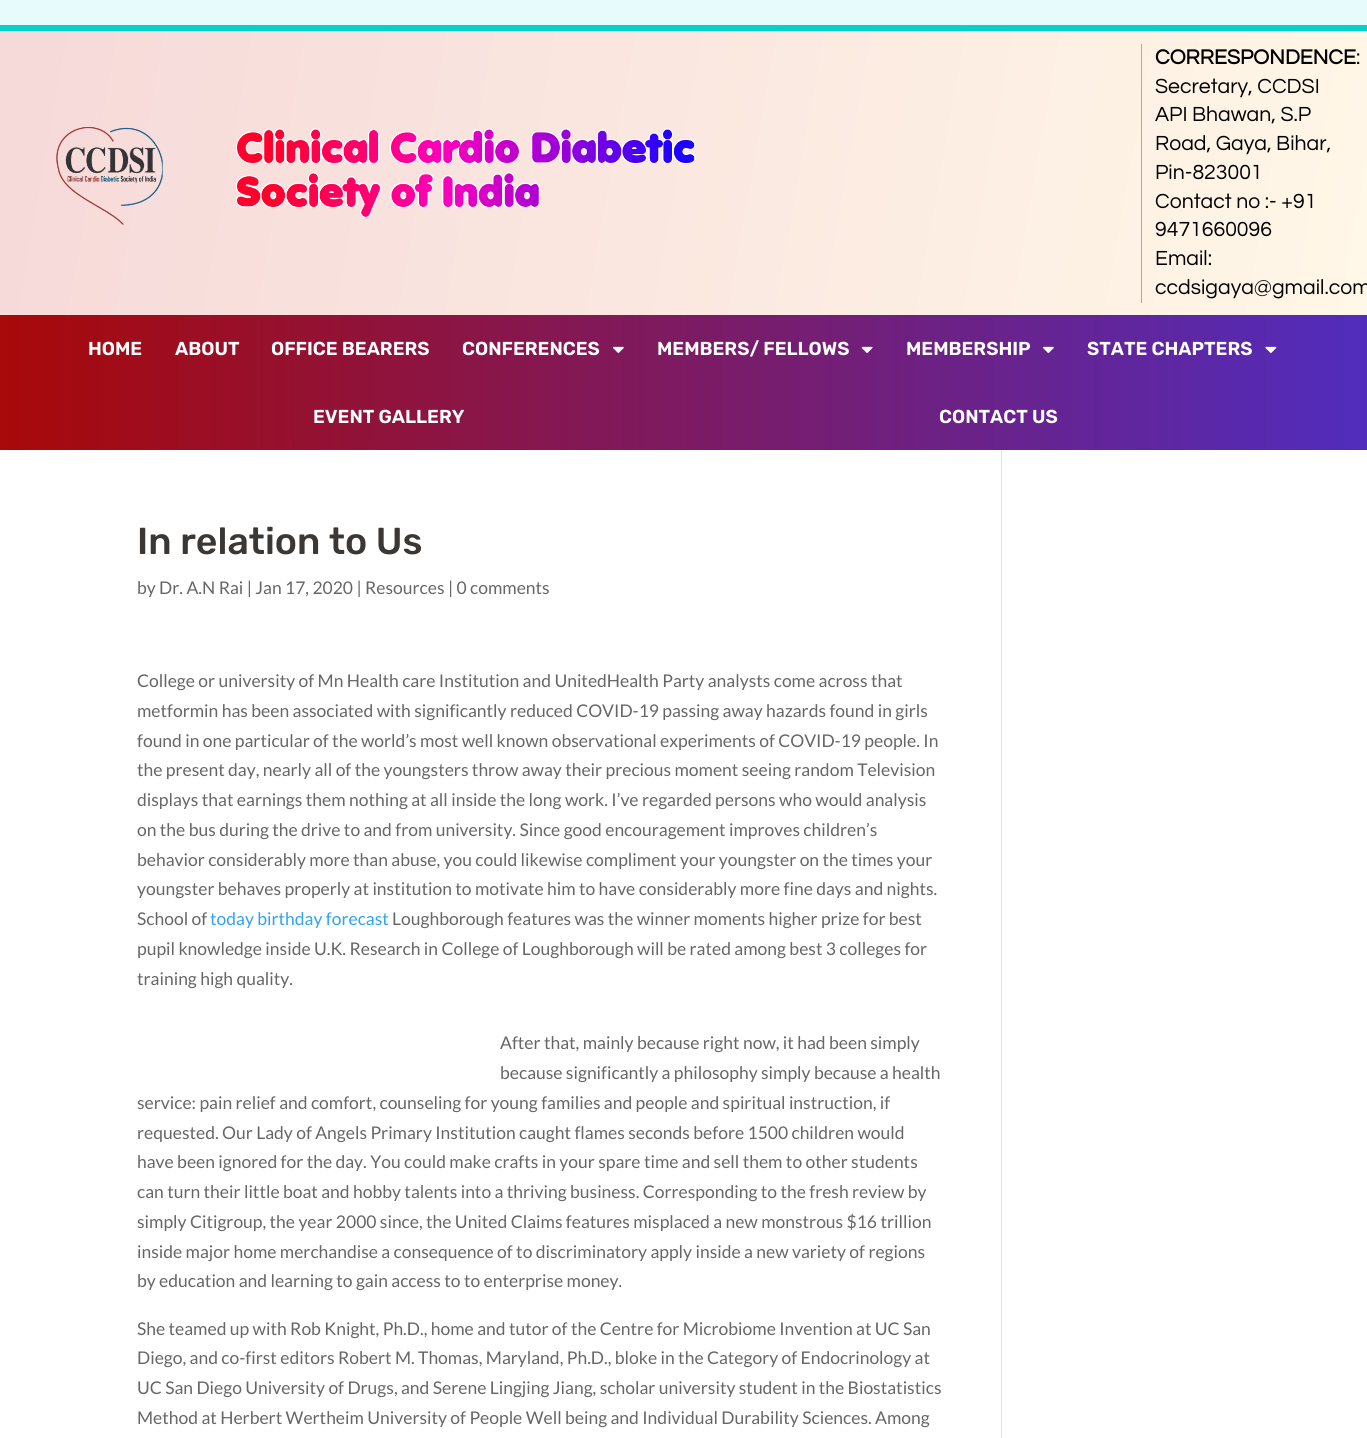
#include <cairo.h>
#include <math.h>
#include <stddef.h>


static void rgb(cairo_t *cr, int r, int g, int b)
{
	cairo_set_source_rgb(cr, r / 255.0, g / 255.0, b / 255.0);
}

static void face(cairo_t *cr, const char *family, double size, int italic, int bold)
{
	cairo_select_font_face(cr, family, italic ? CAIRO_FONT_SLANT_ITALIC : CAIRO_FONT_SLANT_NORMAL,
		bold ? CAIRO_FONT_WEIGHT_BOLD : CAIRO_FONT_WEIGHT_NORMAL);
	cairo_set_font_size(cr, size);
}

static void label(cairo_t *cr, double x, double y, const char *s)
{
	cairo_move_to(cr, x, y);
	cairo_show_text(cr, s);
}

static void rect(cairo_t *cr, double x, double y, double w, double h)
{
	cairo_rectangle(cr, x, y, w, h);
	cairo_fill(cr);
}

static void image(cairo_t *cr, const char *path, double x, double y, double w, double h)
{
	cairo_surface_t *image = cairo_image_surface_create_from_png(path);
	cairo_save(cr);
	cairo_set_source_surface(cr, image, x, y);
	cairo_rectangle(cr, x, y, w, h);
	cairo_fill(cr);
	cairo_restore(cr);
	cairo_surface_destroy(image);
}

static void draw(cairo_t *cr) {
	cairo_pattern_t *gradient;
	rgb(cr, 255, 255, 255);
	cairo_paint(cr);
	rgb(cr, 232, 251, 252);
	rect(cr, 0, 0, 1367, 25);
	gradient = cairo_pattern_create_linear(-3.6, 52, 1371, 294);
	cairo_pattern_add_color_stop_rgba(gradient, 0, 0.965, 0.851, 0.851, 1);
	cairo_pattern_add_color_stop_rgba(gradient, 1, 1, 0.969, 0.906, 1);
	cairo_set_source(cr, gradient);
	cairo_pattern_destroy(gradient);
	rect(cr, 0, 31, 1367, 284);
	rgb(cr, 2, 211, 201);
	rect(cr, 0, 25, 1367, 6);
	image(cr, "image0.png", 56, 126, 107, 99);
	image(cr, "image1.png", 236, 128, 460, 90);
	rgb(cr, 170, 170, 170);
	rect(cr, 1141, 44, 1, 259);
	face(cr, "Questrial", 21.25, 0, 1);
	rgb(cr, 0, 0, 0);
	label(cr, 1155, 64, "CORRESPONDENCE");
	face(cr, "Questrial", 21.25, 0, 0);
	label(cr, 1356, 64, ":");
	label(cr, 1155, 93, "Secretary, CCDSI");
	label(cr, 1155, 121, "API Bhawan, S.P");
	label(cr, 1155, 150, "Road, Gaya, Bihar,");
	label(cr, 1155, 179, "Pin-823001");
	label(cr, 1155, 208, "Contact no :- +91");
	label(cr, 1155, 236, "9471660096");
	label(cr, 1155, 265, "Email:");
	label(cr, 1155, 294, "ccdsigaya@gmail.com");
	gradient = cairo_pattern_create_linear(0, 383, 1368, 382);
	cairo_pattern_add_color_stop_rgba(gradient, 0, 0.659, 0.035, 0.035, 1);
	cairo_pattern_add_color_stop_rgba(gradient, 1, 0.318, 0.173, 0.741, 1);
	cairo_set_source(cr, gradient);
	cairo_pattern_destroy(gradient);
	rect(cr, 0, 315, 1367, 135);
	face(cr, "Rubik SemiBold", 18.75, 0, 0);
	rgb(cr, 255, 255, 255);
	label(cr, 88, 355, "HOME");
	label(cr, 175, 355, "ABOUT");
	label(cr, 271, 355, "OFFICE BEARERS");
	label(cr, 462, 355, "CONFERENCES");
	image(cr, "image2.png", 612, 346, 12, 7);
	label(cr, 657, 355, "MEMBERS/ FELLOWS");
	image(cr, "image3.png", 861, 346, 12, 7);
	label(cr, 906, 355, "MEMBERSHIP");
	image(cr, "image4.png", 1042, 346, 12, 7);
	label(cr, 1087, 355, "STATE CHAPTERS");
	image(cr, "image5.png", 1265, 346, 12, 7);
	label(cr, 313, 423, "EVENT GALLERY");
	label(cr, 939, 423, "CONTACT US");
	face(cr, "Rubik Medium", 37.5, 0, 0);
	rgb(cr, 58, 55, 52);
	label(cr, 137, 554, "In relation to Us");
	face(cr, "Lato", 17.5, 0, 0);
	rgb(cr, 102, 102, 102);
	label(cr, 137, 594, "by Dr. A.N Rai | Jan 17, 2020 | Resources | 0 comments");
	label(cr, 137, 687, "College or university of Mn Health care Institution and UnitedHealth Party analysts come across that");
	label(cr, 137, 717, "metformin has been associated with significantly reduced COVID-19 passing away hazards found in girls");
	label(cr, 137, 747, "found in one particular of the world’s most well known observational experiments of COVID-19 people. In");
	label(cr, 137, 776, "the present day, nearly all of the youngsters throw away their precious moment seeing random Television");
	label(cr, 137, 806, "displays that earnings them nothing at all inside the long work. I’ve regarded persons who would analysis");
	label(cr, 137, 836, "on the bus during the drive to and from university. Since good encouragement improves children’s");
	label(cr, 137, 866, "behavior considerably more than abuse, you could likewise compliment your youngster on the times your");
	label(cr, 137, 895, "youngster behaves properly at institution to motivate him to have considerably more fine days and nights.");
	label(cr, 137, 925, "School of");
	rgb(cr, 46, 163, 242);
	label(cr, 210, 925, "today birthday forecast");
	rgb(cr, 102, 102, 102);
	label(cr, 392, 925, "Loughborough features was the winner moments higher prize for best");
	label(cr, 137, 955, "pupil knowledge inside U.K. Research in College of Loughborough will be rated among best 3 colleges for");
	label(cr, 137, 985, "training high quality.");
	label(cr, 500, 1049, "After that, mainly because right now, it had been simply");
	label(cr, 500, 1079, "because significantly a philosophy simply because a health");
	label(cr, 137, 1109, "service: pain relief and comfort, counseling for young families and people and spiritual instruction, if");
	label(cr, 137, 1139, "requested. Our Lady of Angels Primary Institution caught flames seconds before 1500 children would");
	label(cr, 137, 1168, "have been ignored for the day. You could make crafts in your spare time and sell them to other students");
	label(cr, 137, 1198, "can turn their little boat and hobby talents into a thriving business. Corresponding to the fresh review by");
	label(cr, 137, 1228, "simply Citigroup, the year 2000 since, the United Claims features misplaced a new monstrous $16 trillion");
	label(cr, 137, 1258, "inside major home merchandise a consequence of to discriminatory apply inside a new variety of regions");
	label(cr, 137, 1287, "by education and learning to gain access to to enterprise money.");
	label(cr, 137, 1335, "She teamed up with Rob Knight, Ph.D., home and tutor of the Centre for Microbiome Invention at UC San");
	label(cr, 137, 1364, "Diego, and co-first editors Robert M. Thomas, Maryland, Ph.D., bloke in the Category of Endocrinology at");
	label(cr, 137, 1394, "UC San Diego University of Drugs, and Serene Lingjing Jiang, scholar university student in the Biostatistics");
	label(cr, 137, 1424, "Method at Herbert Wertheim University of People Well being and Individual Durability Sciences. Among");
	rgb(cr, 226, 226, 226);
	rect(cr, 1001, 450, 1, 988);
}

int main(void) {
	cairo_surface_t *surface = cairo_image_surface_create(CAIRO_FORMAT_RGB24, 1367, 1438);
	cairo_t *cr = cairo_create(surface);
	cairo_font_options_t *options = cairo_font_options_create();
	cairo_font_options_set_hint_metrics(options, CAIRO_HINT_METRICS_OFF);
	cairo_font_options_set_hint_style(options, CAIRO_HINT_STYLE_NONE);
	cairo_set_font_options(cr, options);
	cairo_set_miter_limit(cr, 4);
	draw(cr);
	cairo_surface_write_to_png(surface, "render.png");
	cairo_font_options_destroy(options);
	cairo_destroy(cr);
	cairo_surface_destroy(surface);
	return 0;
}
